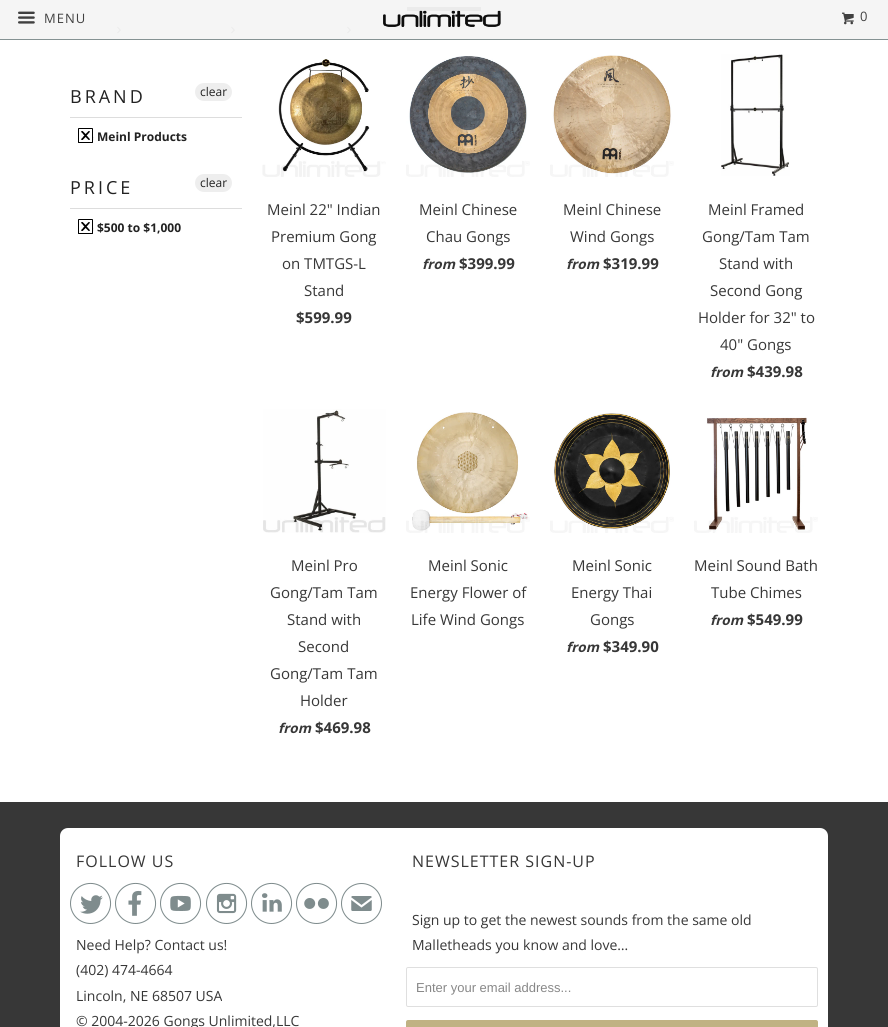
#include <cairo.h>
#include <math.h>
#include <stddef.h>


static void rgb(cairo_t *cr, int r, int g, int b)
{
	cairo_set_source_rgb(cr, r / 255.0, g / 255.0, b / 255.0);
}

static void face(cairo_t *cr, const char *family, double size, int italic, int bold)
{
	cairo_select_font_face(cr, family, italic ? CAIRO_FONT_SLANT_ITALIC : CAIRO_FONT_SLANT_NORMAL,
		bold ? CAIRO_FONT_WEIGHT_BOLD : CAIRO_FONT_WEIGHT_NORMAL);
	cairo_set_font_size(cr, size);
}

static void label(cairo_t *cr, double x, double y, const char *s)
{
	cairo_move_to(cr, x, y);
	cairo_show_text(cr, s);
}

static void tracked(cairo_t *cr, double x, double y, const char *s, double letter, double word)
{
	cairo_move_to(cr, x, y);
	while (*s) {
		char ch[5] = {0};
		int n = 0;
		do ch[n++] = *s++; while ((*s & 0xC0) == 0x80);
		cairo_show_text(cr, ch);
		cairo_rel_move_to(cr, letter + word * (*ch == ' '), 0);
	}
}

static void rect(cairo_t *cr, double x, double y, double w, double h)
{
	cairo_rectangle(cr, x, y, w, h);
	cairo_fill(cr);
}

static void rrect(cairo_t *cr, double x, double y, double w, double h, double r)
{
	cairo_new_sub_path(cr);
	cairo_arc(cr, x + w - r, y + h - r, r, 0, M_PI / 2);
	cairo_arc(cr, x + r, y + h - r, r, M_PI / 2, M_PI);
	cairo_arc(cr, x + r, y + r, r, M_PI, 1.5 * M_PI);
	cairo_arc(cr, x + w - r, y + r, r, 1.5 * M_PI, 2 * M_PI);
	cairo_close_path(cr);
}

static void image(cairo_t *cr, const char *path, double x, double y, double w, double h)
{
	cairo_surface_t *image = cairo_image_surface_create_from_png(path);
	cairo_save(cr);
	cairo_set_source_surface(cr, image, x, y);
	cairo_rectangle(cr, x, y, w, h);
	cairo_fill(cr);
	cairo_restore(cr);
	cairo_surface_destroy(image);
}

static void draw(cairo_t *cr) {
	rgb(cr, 255, 255, 255);
	cairo_paint(cr);
	rgb(cr, 245, 245, 245);
	rect(cr, 0, 0, 888, 39);
	rgb(cr, 133, 146, 147);
	rect(cr, 0, 39, 888, 1);
	image(cr, "image0.png", 18, 11, 17, 13);
	face(cr, "Open Sans", 13, 0, 0);
	rgb(cr, 65, 65, 65);
	tracked(cr, 44, 23, "MENU", 1, 0);
	rgb(cr, 235, 235, 235);
	rect(cr, 407, 7, 74, 4);
	image(cr, "image1.png", 383, 10, 119, 17);
	image(cr, "image2.png", 842, 12, 12, 13);
	rgb(cr, 65, 65, 65);
	tracked(cr, 860, 21, "0", 1, 0);
	image(cr, "image3.png", 117, 26, 4, 8);
	image(cr, "image3.png", 231, 26, 4, 8);
	image(cr, "image3.png", 347, 26, 4, 8);
	rgb(cr, 221, 221, 221);
	rect(cr, 70, 117, 172, 1);
	face(cr, "Open Sans", 18, 0, 0);
	rgb(cr, 34, 34, 34);
	tracked(cr, 70, 103, "BRAND", 3, 0);
	rgb(cr, 238, 238, 238);
	rrect(cr, 195, 83, 37, 18, 9);
	cairo_fill(cr);
	face(cr, "Open Sans", 12, 0, 0);
	rgb(cr, 34, 34, 34);
	label(cr, 200, 96, "clear");
	image(cr, "image4.png", 78, 128, 16, 15);
	face(cr, "Open Sans", 12, 0, 1);
	label(cr, 97, 141, "Meinl Products");
	rgb(cr, 221, 221, 221);
	rect(cr, 70, 208, 172, 1);
	face(cr, "Open Sans", 18, 0, 0);
	rgb(cr, 34, 34, 34);
	tracked(cr, 70, 194, "PRICE", 3, 0);
	rgb(cr, 238, 238, 238);
	rrect(cr, 195, 174, 37, 18, 9);
	cairo_fill(cr);
	face(cr, "Open Sans", 12, 0, 0);
	rgb(cr, 34, 34, 34);
	label(cr, 200, 187, "clear");
	image(cr, "image4.png", 78, 219, 16, 15);
	face(cr, "Open Sans", 12, 0, 1);
	label(cr, 97, 232, "$500 to $1,000");
	image(cr, "image5.png", 262, 59, 124, 118);
	face(cr, "Open Sans", 15, 0, 0);
	rgb(cr, 55, 55, 55);
	label(cr, 267, 215, "Meinl 22\" Indian");
	label(cr, 271, 242, "Premium Gong");
	label(cr, 282, 269, "on TMTGS-L");
	label(cr, 304, 296, "Stand");
	face(cr, "Open Sans", 15, 0, 1);
	label(cr, 296, 323, "$599.99");
	image(cr, "image6.png", 406, 56, 124, 121);
	face(cr, "Open Sans", 15, 0, 0);
	label(cr, 419, 215, "Meinl Chinese");
	label(cr, 426, 242, "Chau Gongs");
	face(cr, "Open Sans", 13.5, 1, 1);
	label(cr, 422, 269, "from");
	face(cr, "Open Sans", 15, 0, 1);
	label(cr, 459, 269, "$399.99");
	image(cr, "image7.png", 550, 55, 124, 122);
	face(cr, "Open Sans", 15, 0, 0);
	label(cr, 563, 215, "Meinl Chinese");
	label(cr, 570, 242, "Wind Gongs");
	face(cr, "Open Sans", 13.5, 1, 1);
	label(cr, 566, 269, "from");
	face(cr, "Open Sans", 15, 0, 1);
	label(cr, 603, 269, "$319.99");
	image(cr, "image8.png", 721, 54, 69, 122);
	face(cr, "Open Sans", 15, 0, 0);
	label(cr, 708, 215, "Meinl Framed");
	label(cr, 702, 242, "Gong/Tam Tam");
	label(cr, 719, 269, "Stand with");
	label(cr, 710, 296, "Second Gong");
	label(cr, 698, 323, "Holder for 32\" to");
	label(cr, 720, 350, "40\" Gongs");
	face(cr, "Open Sans", 13.5, 1, 1);
	label(cr, 710, 377, "from");
	face(cr, "Open Sans", 15, 0, 1);
	label(cr, 747, 377, "$439.98");
	image(cr, "image9.png", 263, 409, 123, 124);
	face(cr, "Open Sans", 15, 0, 0);
	label(cr, 291, 571, "Meinl Pro");
	label(cr, 270, 598, "Gong/Tam Tam");
	label(cr, 287, 625, "Stand with");
	label(cr, 298, 652, "Second");
	label(cr, 270, 679, "Gong/Tam Tam");
	label(cr, 300, 706, "Holder");
	face(cr, "Open Sans", 13.5, 1, 1);
	label(cr, 278, 733, "from");
	face(cr, "Open Sans", 15, 0, 1);
	label(cr, 315, 733, "$469.98");
	image(cr, "image10.png", 406, 412, 124, 121);
	face(cr, "Open Sans", 15, 0, 0);
	label(cr, 428, 571, "Meinl Sonic");
	label(cr, 410, 598, "Energy Flower of");
	label(cr, 411, 625, "Life Wind Gongs");
	image(cr, "image11.png", 550, 413, 124, 120);
	label(cr, 572, 571, "Meinl Sonic");
	label(cr, 571, 598, "Energy Thai");
	label(cr, 590, 625, "Gongs");
	face(cr, "Open Sans", 13.5, 1, 1);
	label(cr, 566, 652, "from");
	face(cr, "Open Sans", 15, 0, 1);
	label(cr, 603, 652, "$349.90");
	image(cr, "image12.png", 694, 417, 124, 116);
	face(cr, "Open Sans", 15, 0, 0);
	label(cr, 694, 571, "Meinl Sound Bath");
	label(cr, 711, 598, "Tube Chimes");
	face(cr, "Open Sans", 13.5, 1, 1);
	label(cr, 710, 625, "from");
	face(cr, "Open Sans", 15, 0, 1);
	label(cr, 747, 625, "$549.99");
	rect(cr, 0, 802, 888, 225);
	rgb(cr, 255, 255, 255);
	rrect(cr, 60, 828, 768, 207, 8);
	cairo_fill(cr);
	face(cr, "Open Sans", 16, 0, 0);
	rgb(cr, 55, 55, 55);
	tracked(cr, 76, 867, "FOLLOW US", 1, 0);
	image(cr, "image13.png", 70, 882, 42, 42);
	image(cr, "image14.png", 115, 882, 42, 42);
	image(cr, "image15.png", 160, 882, 42, 42);
	image(cr, "image16.png", 206, 882, 42, 42);
	image(cr, "image17.png", 251, 882, 42, 42);
	image(cr, "image18.png", 296, 882, 42, 42);
	face(cr, "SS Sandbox", 41, 0, 0);
	rgb(cr, 127, 140, 141);
	label(cr, 341, 924, "✉");
	face(cr, "Open Sans", 14, 0, 0);
	rgb(cr, 55, 55, 55);
	label(cr, 76, 950, "Need Help? Contact us!");
	label(cr, 76, 975, "(402) 474-4664");
	label(cr, 76, 1001, "Lincoln, NE 68507 USA");
	label(cr, 76, 1026, "© 2004-2026 Gongs Unlimited,LLC");
	face(cr, "Open Sans", 16, 0, 0);
	tracked(cr, 412, 867, "NEWSLETTER SIGN-UP", 1, 0);
	face(cr, "Open Sans", 14, 0, 0);
	label(cr, 412, 925, "Sign up to get the newest sounds from the same old");
	label(cr, 412, 950, "Malletheads you know and love…");
	rrect(cr, 406.5, 967.5, 411, 39, 1.5);
	rgb(cr, 223, 223, 223);
	cairo_set_line_width(cr, 1);
	cairo_stroke(cr);
	face(cr, "Liberation Sans", 13, 0, 0);
	rgb(cr, 136, 136, 136);
	label(cr, 416, 992, "Enter your email address...");
	rgb(cr, 192, 178, 131);
	rrect(cr, 406, 1020, 412, 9, 2);
	cairo_fill(cr);
}

int main(void) {
	cairo_surface_t *surface = cairo_image_surface_create(CAIRO_FORMAT_RGB24, 888, 1027);
	cairo_t *cr = cairo_create(surface);
	cairo_font_options_t *options = cairo_font_options_create();
	cairo_font_options_set_hint_metrics(options, CAIRO_HINT_METRICS_OFF);
	cairo_font_options_set_hint_style(options, CAIRO_HINT_STYLE_NONE);
	cairo_set_font_options(cr, options);
	cairo_set_miter_limit(cr, 4);
	draw(cr);
	cairo_surface_write_to_png(surface, "render.png");
	cairo_font_options_destroy(options);
	cairo_destroy(cr);
	cairo_surface_destroy(surface);
	return 0;
}
